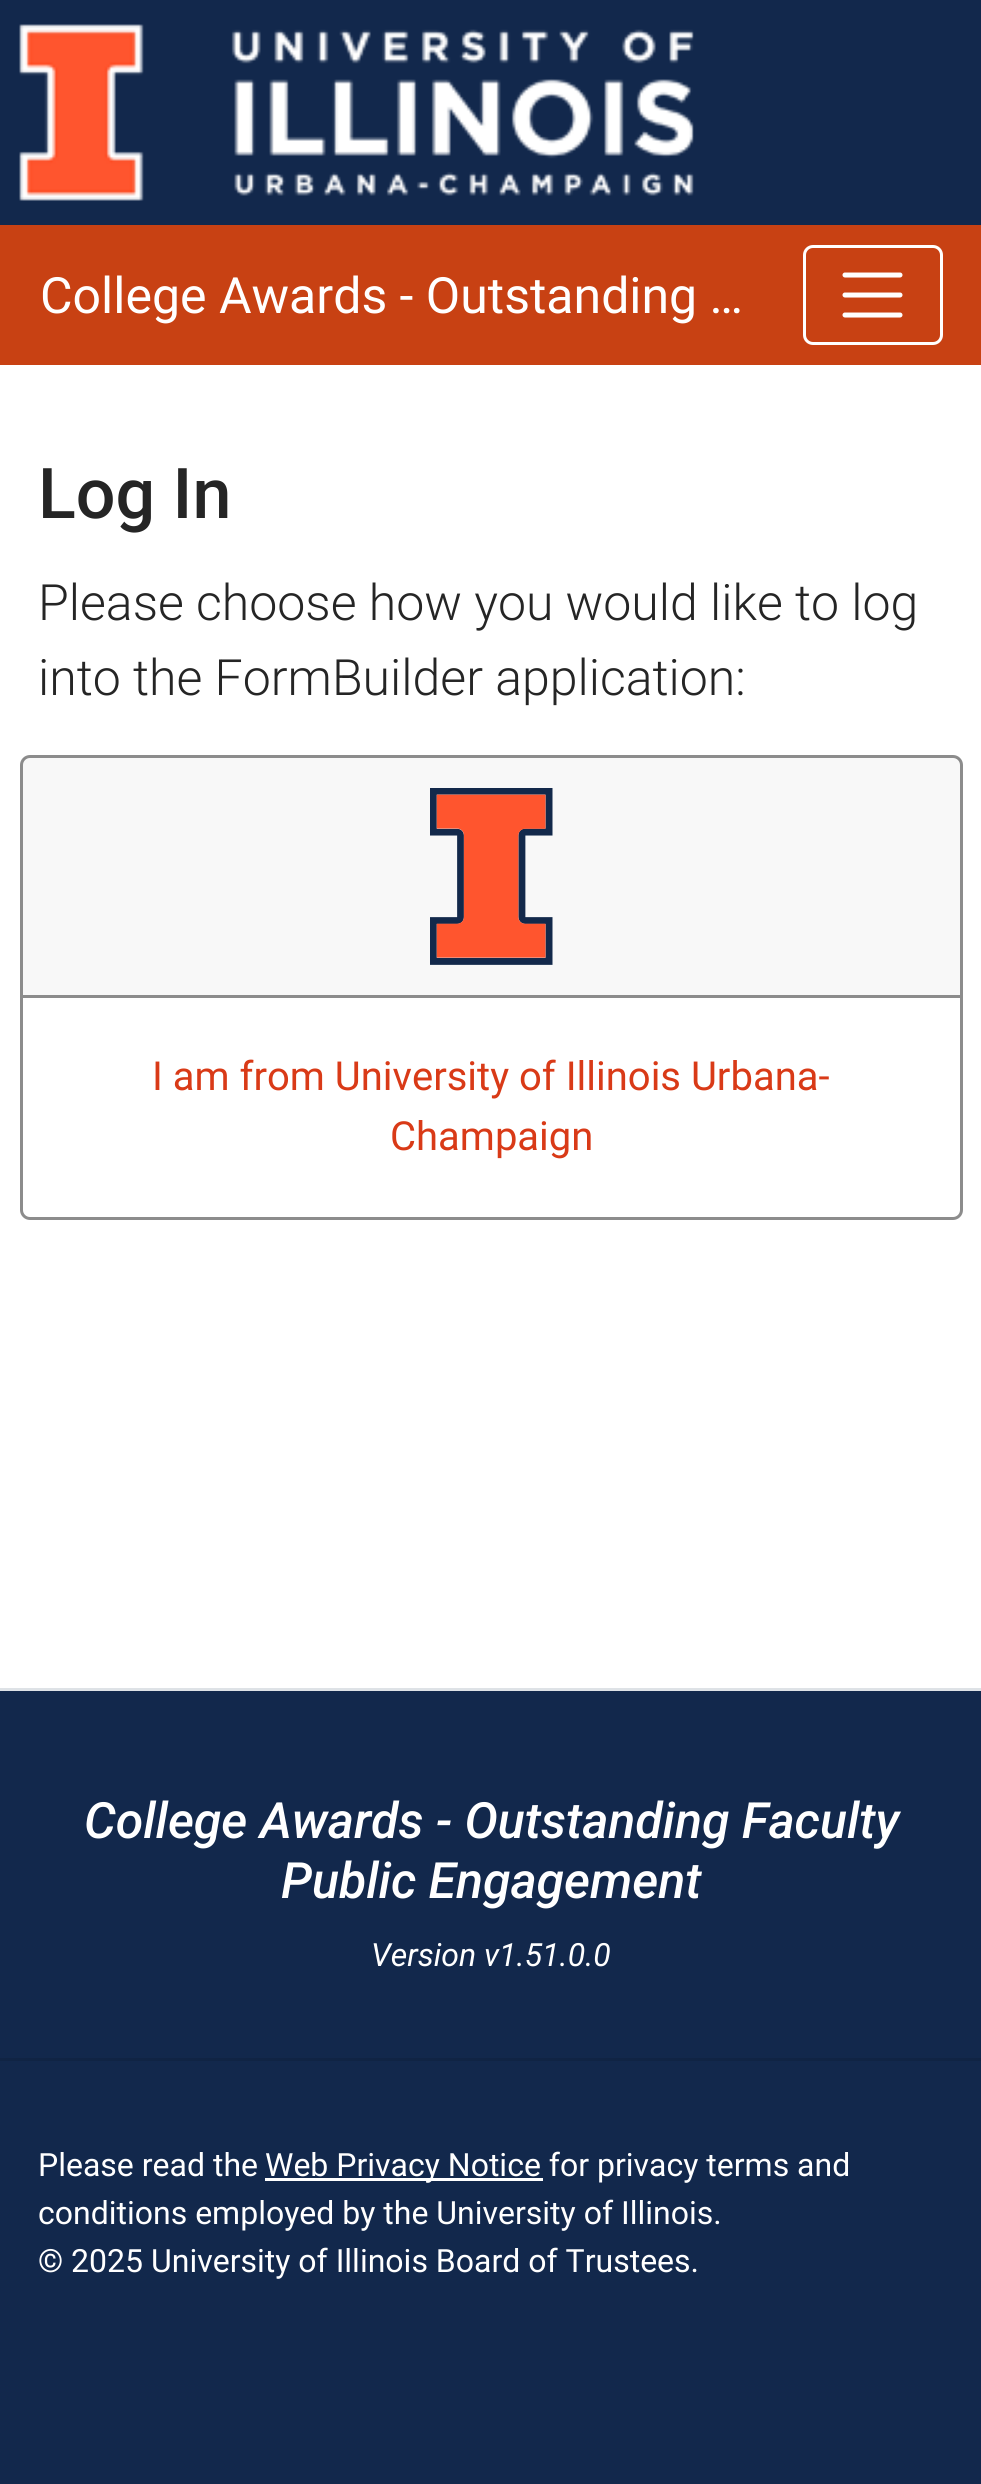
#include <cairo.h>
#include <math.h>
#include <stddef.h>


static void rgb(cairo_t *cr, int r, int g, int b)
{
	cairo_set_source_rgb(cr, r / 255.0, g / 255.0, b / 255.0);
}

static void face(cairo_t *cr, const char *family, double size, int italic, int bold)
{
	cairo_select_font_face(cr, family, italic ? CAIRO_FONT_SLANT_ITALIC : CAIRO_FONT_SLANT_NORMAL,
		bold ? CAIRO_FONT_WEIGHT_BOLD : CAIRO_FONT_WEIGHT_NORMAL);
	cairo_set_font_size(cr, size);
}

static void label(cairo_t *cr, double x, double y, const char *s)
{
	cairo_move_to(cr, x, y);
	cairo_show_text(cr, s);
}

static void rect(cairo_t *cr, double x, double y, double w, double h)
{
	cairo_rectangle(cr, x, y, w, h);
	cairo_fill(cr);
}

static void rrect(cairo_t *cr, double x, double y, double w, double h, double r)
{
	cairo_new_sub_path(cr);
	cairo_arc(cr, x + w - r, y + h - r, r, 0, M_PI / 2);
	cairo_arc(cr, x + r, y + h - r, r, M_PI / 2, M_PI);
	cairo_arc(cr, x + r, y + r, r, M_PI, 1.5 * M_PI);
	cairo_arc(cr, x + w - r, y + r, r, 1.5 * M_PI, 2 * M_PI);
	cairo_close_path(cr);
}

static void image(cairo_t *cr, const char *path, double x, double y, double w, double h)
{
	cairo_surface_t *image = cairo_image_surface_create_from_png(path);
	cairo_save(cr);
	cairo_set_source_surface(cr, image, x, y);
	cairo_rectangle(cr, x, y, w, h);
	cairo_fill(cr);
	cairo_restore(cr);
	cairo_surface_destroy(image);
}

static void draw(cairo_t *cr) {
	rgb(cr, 255, 255, 255);
	cairo_paint(cr);
	rgb(cr, 18, 40, 76);
	rect(cr, 0, 0, 981, 225);
	image(cr, "image0.png", 19, 24, 675, 177);
	rgb(cr, 200, 65, 19);
	rect(cr, 0, 225, 981, 140);
	face(cr, "Roboto", 50, 0, 0);
	rgb(cr, 255, 255, 255);
	label(cr, 40, 313, "College Awards - Outstanding …");
	rrect(cr, 804.5, 246.5, 137, 97, 8.5);
	cairo_set_line_width(cr, 3);
	cairo_stroke(cr);
	cairo_new_path(cr);
	cairo_move_to(cr, 845, 275);
	cairo_line_to(cr, 900, 275);
	cairo_move_to(cr, 845, 295);
	cairo_line_to(cr, 900, 295);
	cairo_move_to(cr, 845, 315);
	cairo_line_to(cr, 900, 315);
	cairo_set_line_width(cr, 5);
	cairo_set_line_cap(cr, CAIRO_LINE_CAP_ROUND);
	cairo_stroke(cr);
	face(cr, "Roboto Medium", 70, 0, 0);
	rgb(cr, 37, 37, 37);
	label(cr, 38, 518, "Log In");
	face(cr, "Roboto Light", 50, 0, 0);
	label(cr, 38, 620, "Please choose how you would like to log");
	label(cr, 38, 695, "into the FormBuilder application:");
	rrect(cr, 21.5, 756.5, 940, 462, 8.5);
	rgb(cr, 140, 140, 140);
	cairo_set_line_width(cr, 3);
	cairo_set_line_cap(cr, CAIRO_LINE_CAP_BUTT);
	cairo_stroke(cr);
	cairo_set_source_rgba(cr, 0, 0, 0, 0.03);
	rect(cr, 23, 758, 937, 237);
	rgb(cr, 140, 140, 140);
	rect(cr, 23, 995, 937, 3);
	image(cr, "image1.png", 430, 788, 123, 177);
	face(cr, "Roboto", 40, 0, 0);
	rgb(cr, 217, 58, 23);
	label(cr, 152, 1090, "I am from University of Illinois Urbana-");
	label(cr, 390, 1150, "Champaign");
	rgb(cr, 18, 40, 76);
	rect(cr, 0, 1691, 981, 793);
	rgb(cr, 222, 226, 230);
	rect(cr, 0, 1688, 981, 3);
	face(cr, "Roboto Medium", 50, 1, 0);
	rgb(cr, 255, 255, 255);
	label(cr, 84, 1838, "College Awards - Outstanding Faculty");
	label(cr, 281, 1898, "Public Engagement");
	face(cr, "Roboto", 32, 1, 0);
	label(cr, 371, 1966, "Version v1.51.0.0");
	rgb(cr, 16, 36, 68);
	rect(cr, 0, 2058, 981, 3);
	face(cr, "Roboto", 32, 0, 0);
	rgb(cr, 255, 255, 255);
	label(cr, 38, 2176, "Please read the");
	rect(cr, 265, 2178, 278, 3);
	label(cr, 265, 2176, "Web Privacy Notice for privacy terms and");
	label(cr, 38, 2224, "conditions employed by the University of Illinois.");
	label(cr, 38, 2272, "© 2025 University of Illinois Board of Trustees.");
}

int main(void) {
	cairo_surface_t *surface = cairo_image_surface_create(CAIRO_FORMAT_RGB24, 981, 2484);
	cairo_t *cr = cairo_create(surface);
	cairo_font_options_t *options = cairo_font_options_create();
	cairo_font_options_set_hint_metrics(options, CAIRO_HINT_METRICS_OFF);
	cairo_font_options_set_hint_style(options, CAIRO_HINT_STYLE_NONE);
	cairo_set_font_options(cr, options);
	cairo_set_miter_limit(cr, 4);
	draw(cr);
	cairo_surface_write_to_png(surface, "render.png");
	cairo_font_options_destroy(options);
	cairo_destroy(cr);
	cairo_surface_destroy(surface);
	return 0;
}
